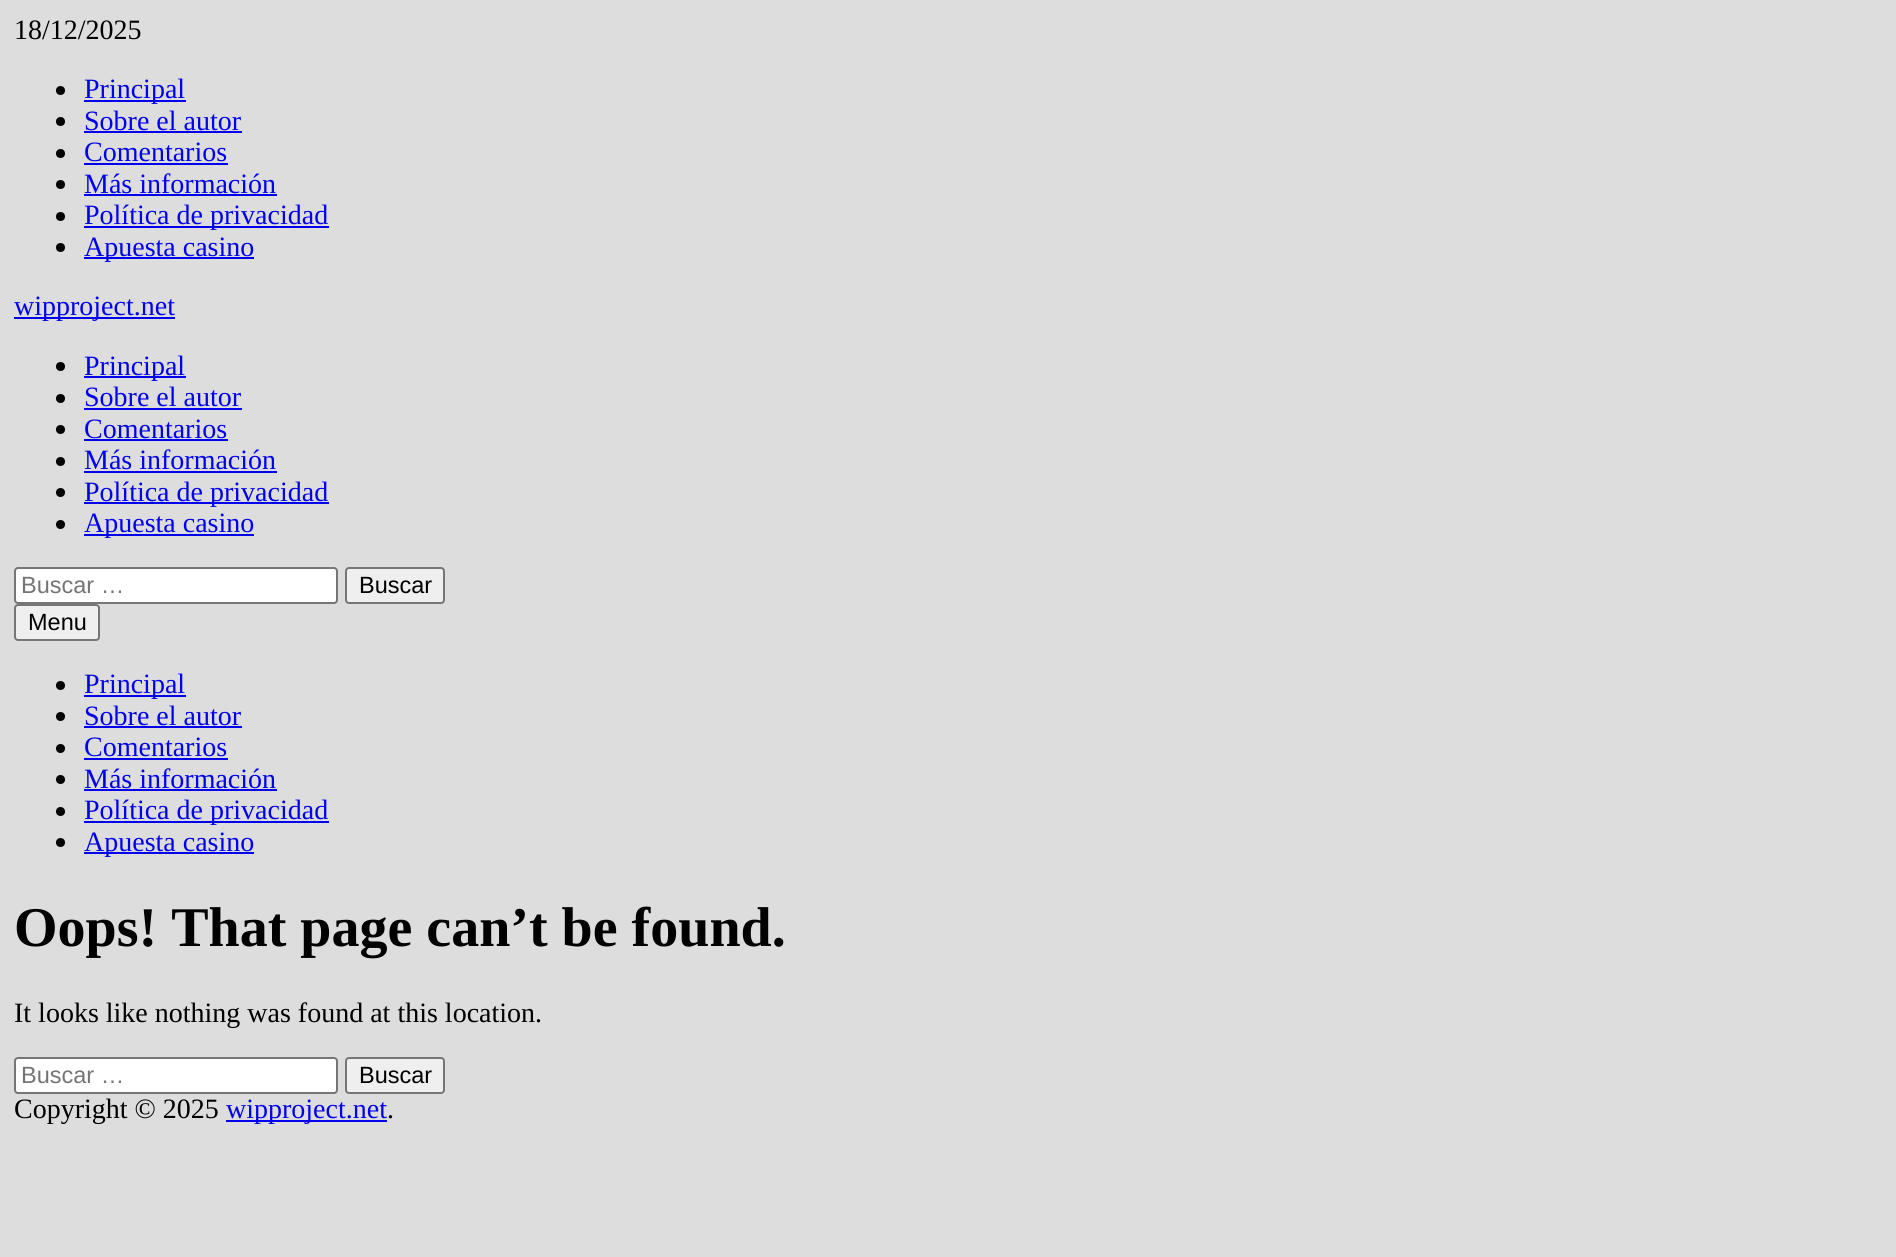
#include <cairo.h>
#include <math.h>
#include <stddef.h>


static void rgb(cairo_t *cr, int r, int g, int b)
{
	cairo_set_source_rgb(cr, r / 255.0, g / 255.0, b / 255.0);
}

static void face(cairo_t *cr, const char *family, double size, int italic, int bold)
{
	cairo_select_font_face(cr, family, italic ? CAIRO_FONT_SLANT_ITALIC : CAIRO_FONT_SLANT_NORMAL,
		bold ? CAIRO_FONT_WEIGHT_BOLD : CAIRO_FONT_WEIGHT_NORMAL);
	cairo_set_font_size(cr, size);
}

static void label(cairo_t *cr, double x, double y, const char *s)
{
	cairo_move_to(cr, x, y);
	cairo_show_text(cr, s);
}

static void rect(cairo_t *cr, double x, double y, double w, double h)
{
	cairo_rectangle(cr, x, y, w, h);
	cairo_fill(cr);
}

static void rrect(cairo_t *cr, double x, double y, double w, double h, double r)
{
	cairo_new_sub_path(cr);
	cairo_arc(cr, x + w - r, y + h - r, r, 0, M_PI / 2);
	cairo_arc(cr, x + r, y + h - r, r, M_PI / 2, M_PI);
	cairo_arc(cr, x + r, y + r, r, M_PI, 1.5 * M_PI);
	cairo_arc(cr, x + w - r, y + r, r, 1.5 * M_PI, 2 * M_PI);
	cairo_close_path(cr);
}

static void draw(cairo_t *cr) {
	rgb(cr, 221, 221, 221);
	cairo_paint(cr);
	face(cr, "Liberation Serif", 28, 0, 0);
	rgb(cr, 0, 0, 0);
	label(cr, 14, 39, "18/12/2025");
	cairo_new_path(cr);
	cairo_arc(cr, 60.5, 90.5, 4.5, 0, 2 * M_PI);
	cairo_fill(cr);
	rgb(cr, 0, 0, 238);
	rect(cr, 84, 100, 102, 2);
	label(cr, 84, 98, "Principal");
	rgb(cr, 0, 0, 0);
	cairo_new_path(cr);
	cairo_arc(cr, 60.5, 121.5, 4.5, 0, 2 * M_PI);
	cairo_fill(cr);
	rgb(cr, 0, 0, 238);
	label(cr, 84, 130, "Sobre el autor");
	rect(cr, 84, 131, 158, 2);
	rgb(cr, 0, 0, 0);
	cairo_new_path(cr);
	cairo_arc(cr, 60.5, 153.5, 4.5, 0, 2 * M_PI);
	cairo_fill(cr);
	rgb(cr, 0, 0, 238);
	label(cr, 84, 161, "Comentarios");
	rect(cr, 84, 163, 144, 2);
	rgb(cr, 0, 0, 0);
	cairo_new_path(cr);
	cairo_arc(cr, 60.5, 184.5, 4.5, 0, 2 * M_PI);
	cairo_fill(cr);
	rgb(cr, 0, 0, 238);
	label(cr, 84, 193, "Más información");
	rect(cr, 84, 194, 193, 2);
	rgb(cr, 0, 0, 0);
	cairo_new_path(cr);
	cairo_arc(cr, 60.5, 216.5, 4.5, 0, 2 * M_PI);
	cairo_fill(cr);
	rgb(cr, 0, 0, 238);
	rect(cr, 84, 226, 245, 2);
	label(cr, 84, 224, "Política de privacidad");
	rgb(cr, 0, 0, 0);
	cairo_new_path(cr);
	cairo_arc(cr, 60.5, 247.5, 4.5, 0, 2 * M_PI);
	cairo_fill(cr);
	rgb(cr, 0, 0, 238);
	rect(cr, 84, 257, 170, 2);
	label(cr, 84, 256, "Apuesta casino");
	rect(cr, 14, 317, 161, 2);
	label(cr, 14, 315, "wipproject.net");
	rgb(cr, 0, 0, 0);
	cairo_new_path(cr);
	cairo_arc(cr, 60.5, 366.5, 4.5, 0, 2 * M_PI);
	cairo_fill(cr);
	rgb(cr, 0, 0, 238);
	rect(cr, 84, 376, 102, 2);
	label(cr, 84, 375, "Principal");
	rgb(cr, 0, 0, 0);
	cairo_new_path(cr);
	cairo_arc(cr, 60.5, 398.5, 4.5, 0, 2 * M_PI);
	cairo_fill(cr);
	rgb(cr, 0, 0, 238);
	label(cr, 84, 406, "Sobre el autor");
	rect(cr, 84, 408, 158, 2);
	rgb(cr, 0, 0, 0);
	cairo_new_path(cr);
	cairo_arc(cr, 60.5, 429.5, 4.5, 0, 2 * M_PI);
	cairo_fill(cr);
	rgb(cr, 0, 0, 238);
	label(cr, 84, 438, "Comentarios");
	rect(cr, 84, 439, 144, 2);
	rgb(cr, 0, 0, 0);
	cairo_new_path(cr);
	cairo_arc(cr, 60.5, 461.5, 4.5, 0, 2 * M_PI);
	cairo_fill(cr);
	rgb(cr, 0, 0, 238);
	label(cr, 84, 469, "Más información");
	rect(cr, 84, 471, 193, 2);
	rgb(cr, 0, 0, 0);
	cairo_new_path(cr);
	cairo_arc(cr, 60.5, 492.5, 4.5, 0, 2 * M_PI);
	cairo_fill(cr);
	rgb(cr, 0, 0, 238);
	rect(cr, 84, 502, 245, 2);
	label(cr, 84, 501, "Política de privacidad");
	rgb(cr, 0, 0, 0);
	cairo_new_path(cr);
	cairo_arc(cr, 60.5, 524.5, 4.5, 0, 2 * M_PI);
	cairo_fill(cr);
	rgb(cr, 0, 0, 238);
	rect(cr, 84, 534, 170, 2);
	label(cr, 84, 532, "Apuesta casino");
	rgb(cr, 255, 255, 255);
	rrect(cr, 15, 568, 322, 35, 3);
	cairo_fill_preserve(cr);
	rgb(cr, 118, 118, 118);
	cairo_stroke(cr);
	face(cr, "Liberation Sans", 23.5, 0, 0);
	rgb(cr, 117, 117, 117);
	label(cr, 21, 593, "Buscar …");
	rgb(cr, 239, 239, 239);
	rrect(cr, 346, 568, 98, 35, 3);
	cairo_fill_preserve(cr);
	rgb(cr, 118, 118, 118);
	cairo_stroke(cr);
	rgb(cr, 0, 0, 0);
	label(cr, 359, 593, "Buscar");
	rgb(cr, 239, 239, 239);
	rrect(cr, 15, 605, 84, 35, 3);
	cairo_fill_preserve(cr);
	rgb(cr, 118, 118, 118);
	cairo_stroke(cr);
	rgb(cr, 0, 0, 0);
	label(cr, 28, 630, "Menu");
	cairo_new_path(cr);
	cairo_arc(cr, 60.5, 685.5, 4.5, 0, 2 * M_PI);
	cairo_fill(cr);
	rgb(cr, 0, 0, 238);
	rect(cr, 84, 695, 102, 2);
	face(cr, "Liberation Serif", 28, 0, 0);
	label(cr, 84, 693, "Principal");
	rgb(cr, 0, 0, 0);
	cairo_new_path(cr);
	cairo_arc(cr, 60.5, 716.5, 4.5, 0, 2 * M_PI);
	cairo_fill(cr);
	rgb(cr, 0, 0, 238);
	label(cr, 84, 725, "Sobre el autor");
	rect(cr, 84, 726, 158, 2);
	rgb(cr, 0, 0, 0);
	cairo_new_path(cr);
	cairo_arc(cr, 60.5, 748.5, 4.5, 0, 2 * M_PI);
	cairo_fill(cr);
	rgb(cr, 0, 0, 238);
	label(cr, 84, 756, "Comentarios");
	rect(cr, 84, 758, 144, 2);
	rgb(cr, 0, 0, 0);
	cairo_new_path(cr);
	cairo_arc(cr, 60.5, 779.5, 4.5, 0, 2 * M_PI);
	cairo_fill(cr);
	rgb(cr, 0, 0, 238);
	label(cr, 84, 788, "Más información");
	rect(cr, 84, 789, 193, 2);
	rgb(cr, 0, 0, 0);
	cairo_new_path(cr);
	cairo_arc(cr, 60.5, 811.5, 4.5, 0, 2 * M_PI);
	cairo_fill(cr);
	rgb(cr, 0, 0, 238);
	rect(cr, 84, 821, 245, 2);
	label(cr, 84, 819, "Política de privacidad");
	rgb(cr, 0, 0, 0);
	cairo_new_path(cr);
	cairo_arc(cr, 60.5, 842.5, 4.5, 0, 2 * M_PI);
	cairo_fill(cr);
	rgb(cr, 0, 0, 238);
	rect(cr, 84, 852, 170, 2);
	label(cr, 84, 851, "Apuesta casino");
	face(cr, "Liberation Serif", 56, 0, 1);
	rgb(cr, 0, 0, 0);
	label(cr, 14, 946, "Oops! That page can’t be found.");
	face(cr, "Liberation Serif", 28, 0, 0);
	label(cr, 14, 1022, "It looks like nothing was found at this location.");
	rgb(cr, 255, 255, 255);
	rrect(cr, 15, 1058, 322, 35, 3);
	cairo_fill_preserve(cr);
	rgb(cr, 118, 118, 118);
	cairo_stroke(cr);
	face(cr, "Liberation Sans", 23.5, 0, 0);
	rgb(cr, 117, 117, 117);
	label(cr, 21, 1083, "Buscar …");
	rgb(cr, 239, 239, 239);
	rrect(cr, 346, 1058, 98, 35, 3);
	cairo_fill_preserve(cr);
	rgb(cr, 118, 118, 118);
	cairo_stroke(cr);
	rgb(cr, 0, 0, 0);
	label(cr, 359, 1083, "Buscar");
	face(cr, "Liberation Serif", 28, 0, 0);
	label(cr, 14, 1118, "Copyright © 2025");
	rgb(cr, 0, 0, 238);
	rect(cr, 226, 1120, 161, 2);
	label(cr, 226, 1118, "wipproject.net");
	rgb(cr, 0, 0, 0);
	label(cr, 387, 1118, ".");
}

int main(void) {
	cairo_surface_t *surface = cairo_image_surface_create(CAIRO_FORMAT_RGB24, 1896, 1257);
	cairo_t *cr = cairo_create(surface);
	cairo_font_options_t *options = cairo_font_options_create();
	cairo_font_options_set_hint_metrics(options, CAIRO_HINT_METRICS_OFF);
	cairo_font_options_set_hint_style(options, CAIRO_HINT_STYLE_NONE);
	cairo_set_font_options(cr, options);
	cairo_set_miter_limit(cr, 4);
	draw(cr);
	cairo_surface_write_to_png(surface, "render.png");
	cairo_font_options_destroy(options);
	cairo_destroy(cr);
	cairo_surface_destroy(surface);
	return 0;
}
